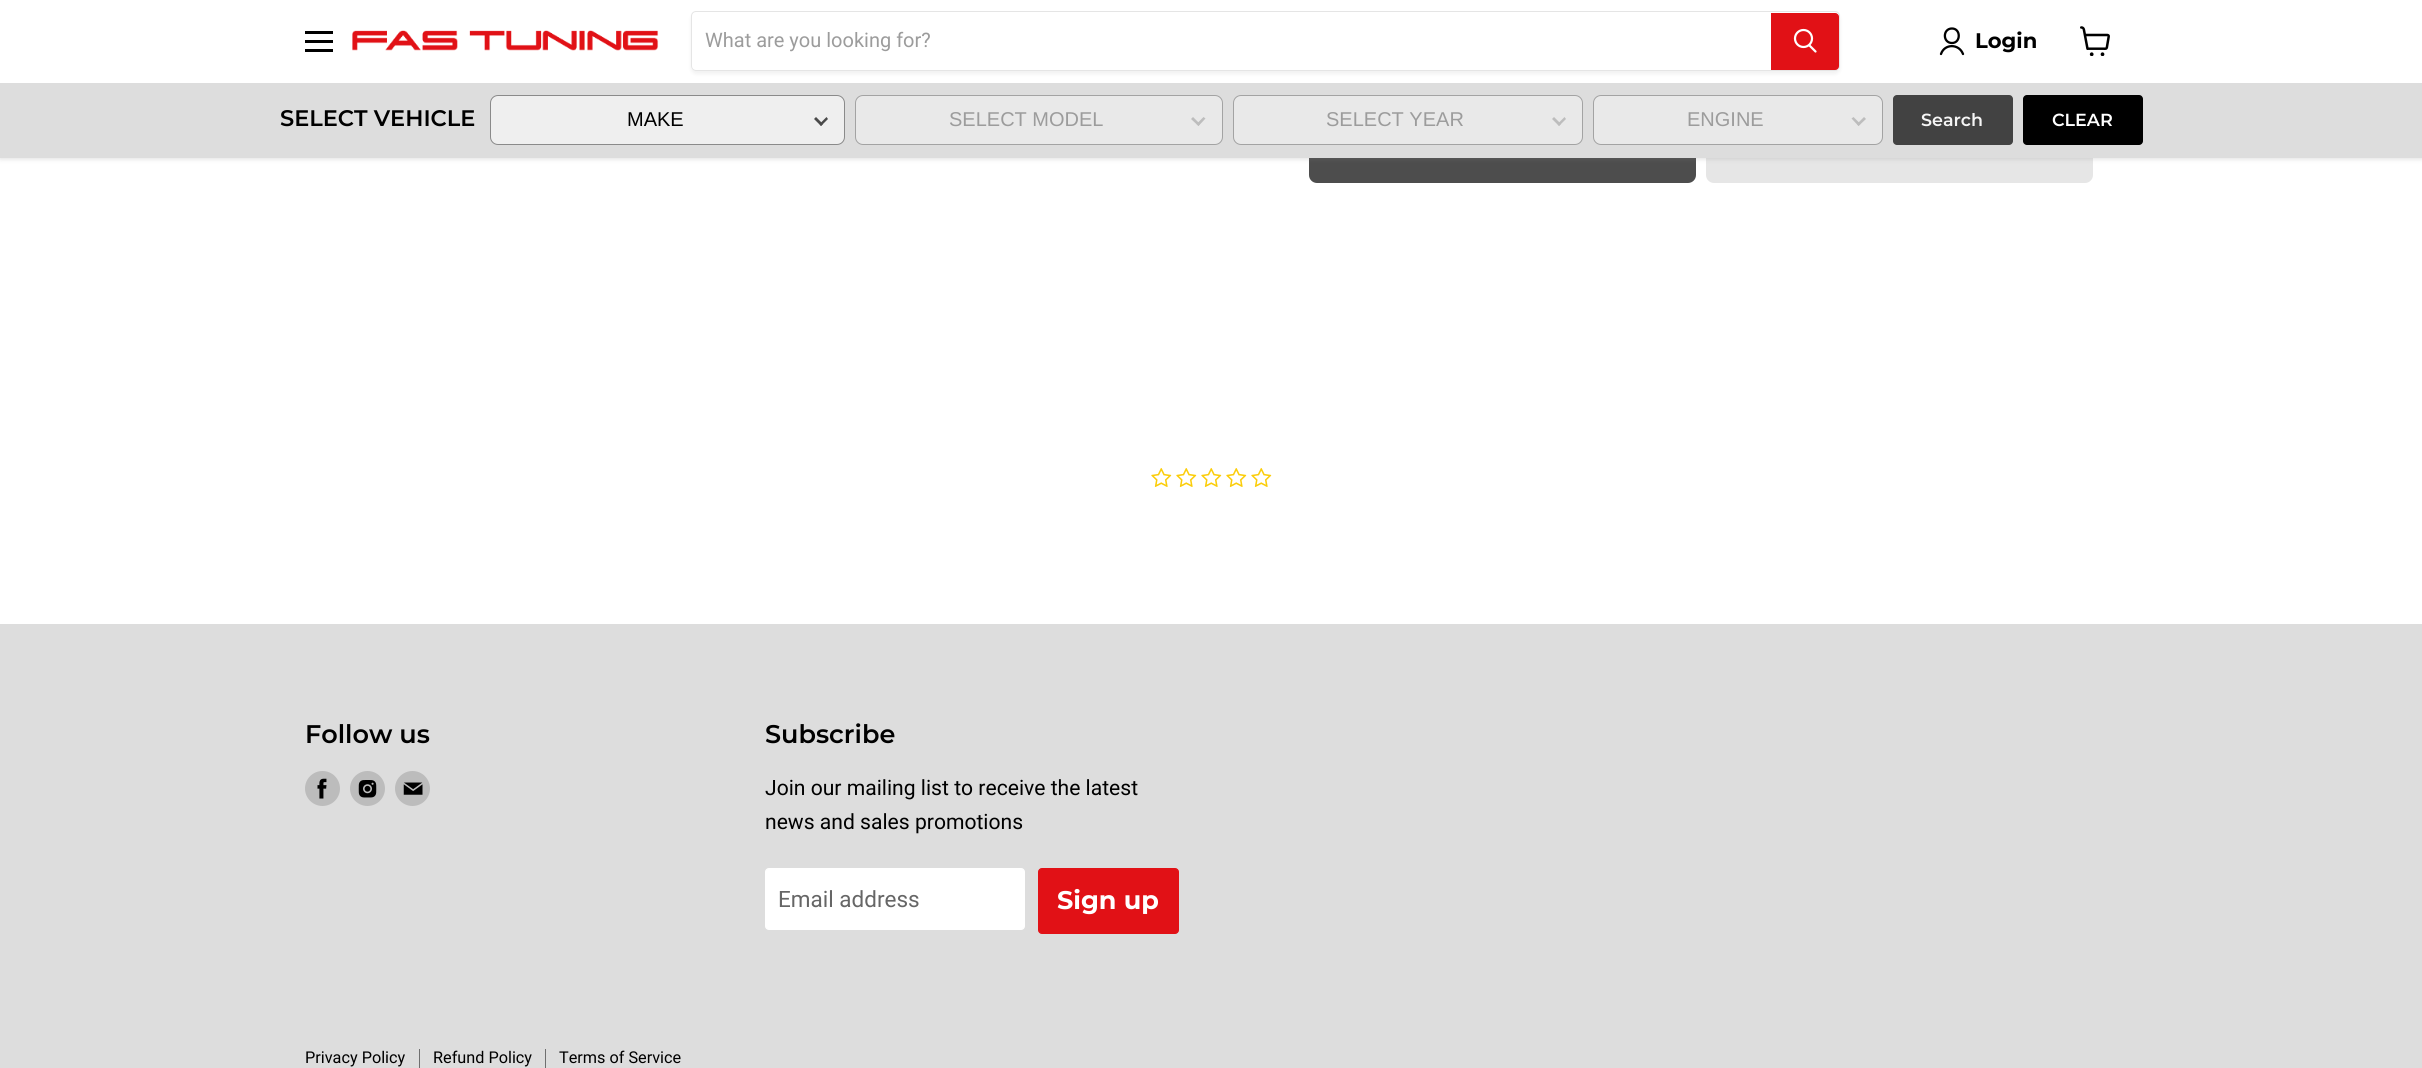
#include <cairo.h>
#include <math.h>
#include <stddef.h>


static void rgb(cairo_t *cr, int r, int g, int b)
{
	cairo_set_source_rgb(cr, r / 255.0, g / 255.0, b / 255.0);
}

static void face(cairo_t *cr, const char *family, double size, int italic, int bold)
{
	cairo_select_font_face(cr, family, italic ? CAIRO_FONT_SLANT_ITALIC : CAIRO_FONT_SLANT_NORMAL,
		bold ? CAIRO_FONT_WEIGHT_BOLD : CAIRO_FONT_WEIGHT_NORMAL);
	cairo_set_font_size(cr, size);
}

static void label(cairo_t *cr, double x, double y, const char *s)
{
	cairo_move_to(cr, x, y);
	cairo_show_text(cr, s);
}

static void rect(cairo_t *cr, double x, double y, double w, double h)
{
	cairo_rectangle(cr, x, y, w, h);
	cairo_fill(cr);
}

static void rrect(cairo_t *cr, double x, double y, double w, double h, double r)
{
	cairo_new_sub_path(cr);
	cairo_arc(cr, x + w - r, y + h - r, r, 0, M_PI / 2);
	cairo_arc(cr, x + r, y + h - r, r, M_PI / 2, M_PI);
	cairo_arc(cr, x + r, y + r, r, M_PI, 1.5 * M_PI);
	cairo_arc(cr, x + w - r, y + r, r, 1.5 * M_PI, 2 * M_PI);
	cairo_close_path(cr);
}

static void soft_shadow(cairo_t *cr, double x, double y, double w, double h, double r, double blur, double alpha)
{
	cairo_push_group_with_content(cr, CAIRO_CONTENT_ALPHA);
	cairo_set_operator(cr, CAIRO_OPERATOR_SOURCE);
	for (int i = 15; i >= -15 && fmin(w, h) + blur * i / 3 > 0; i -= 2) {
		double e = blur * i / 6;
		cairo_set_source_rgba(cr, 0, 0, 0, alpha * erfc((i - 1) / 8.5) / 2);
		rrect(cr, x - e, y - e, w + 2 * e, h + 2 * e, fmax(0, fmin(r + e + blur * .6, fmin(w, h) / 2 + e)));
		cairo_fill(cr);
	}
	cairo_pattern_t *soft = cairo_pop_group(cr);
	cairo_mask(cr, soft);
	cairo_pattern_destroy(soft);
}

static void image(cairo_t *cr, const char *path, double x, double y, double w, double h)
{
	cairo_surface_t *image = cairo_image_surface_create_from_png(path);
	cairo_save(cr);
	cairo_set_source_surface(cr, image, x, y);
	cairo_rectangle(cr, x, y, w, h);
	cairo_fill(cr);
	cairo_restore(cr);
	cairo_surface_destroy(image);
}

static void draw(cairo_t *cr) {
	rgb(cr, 255, 255, 255);
	cairo_paint(cr);
	rgb(cr, 77, 77, 77);
	rrect(cr, 1309, 133, 387, 50, 8);
	cairo_fill(cr);
	rgb(cr, 230, 230, 230);
	rrect(cr, 1706, 133, 387, 50, 8);
	cairo_fill(cr);
	rgb(cr, 128, 128, 128);
	soft_shadow(cr, 0, 1, 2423, 158, 0, 2.5, 0.25);
	rgb(cr, 255, 255, 255);
	rect(cr, 0, 0, 2422, 83);
	rgb(cr, 0, 0, 0);
	rect(cr, 305, 31, 28, 3);
	rect(cr, 305, 40, 28, 3);
	rect(cr, 305, 49, 28, 3);
	image(cr, "image0.png", 352, 30, 307, 21);
	cairo_save(cr);
	cairo_set_fill_rule(cr, CAIRO_FILL_RULE_EVEN_ODD);
	cairo_new_path(cr);
	cairo_move_to(cr, 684, 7);
	cairo_line_to(cr, 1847, 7);
	cairo_line_to(cr, 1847, 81);
	cairo_line_to(cr, 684, 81);
	cairo_close_path(cr);
	cairo_move_to(cr, 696, 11);
	cairo_line_to(cr, 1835, 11);
	cairo_curve_to(cr, 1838, 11, 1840, 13, 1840, 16);
	cairo_line_to(cr, 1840, 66);
	cairo_curve_to(cr, 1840, 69, 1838, 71, 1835, 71);
	cairo_line_to(cr, 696, 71);
	cairo_curve_to(cr, 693, 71, 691, 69, 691, 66);
	cairo_line_to(cr, 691, 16);
	cairo_curve_to(cr, 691, 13, 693, 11, 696, 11);
	cairo_close_path(cr);
	cairo_clip(cr);
	rgb(cr, 128, 128, 128);
	soft_shadow(cr, 691, 14, 1149, 60, 5, 2, 0.11);
	cairo_restore(cr);
	rrect(cr, 691.5, 11.5, 1148, 59, 4.5);
	cairo_set_source_rgba(cr, 0.502, 0.502, 0.502, 0.2);
	cairo_set_line_width(cr, 1);
	cairo_stroke(cr);
	face(cr, "Roboto", 20, 0, 0);
	rgb(cr, 156, 156, 156);
	label(cr, 705, 47, "What are you looking for?");
	rgb(cr, 225, 17, 22);
	cairo_new_path(cr);
	cairo_move_to(cr, 1771.5, 13.5);
	cairo_line_to(cr, 1835, 13.5);
	cairo_curve_to(cr, 1837, 13.5, 1838.5, 15, 1838.5, 17);
	cairo_line_to(cr, 1838.5, 66);
	cairo_curve_to(cr, 1838.5, 68, 1837, 69.5, 1835, 69.5);
	cairo_line_to(cr, 1771.5, 69.5);
	cairo_close_path(cr);
	cairo_fill_preserve(cr);
	cairo_stroke(cr);
	cairo_new_path(cr);
	cairo_move_to(cr, 1815.5, 51.5);
	cairo_line_to(cr, 1809.5, 45.5);
	rgb(cr, 255, 255, 255);
	cairo_set_line_width(cr, 2.2);
	cairo_set_line_cap(cr, CAIRO_LINE_CAP_ROUND);
	cairo_stroke(cr);
	cairo_arc(cr, 1803.5, 38.5, 8.5, 0, 2 * M_PI);
	cairo_set_line_cap(cr, CAIRO_LINE_CAP_BUTT);
	cairo_stroke(cr);
	cairo_new_path(cr);
	cairo_move_to(cr, 1952, 43);
	cairo_curve_to(cr, 1961, 43, 1961, 28.5, 1952, 28.5);
	cairo_curve_to(cr, 1942.5, 28.5, 1942.5, 43, 1952, 43);
	cairo_close_path(cr);
	cairo_move_to(cr, 1963, 54);
	cairo_curve_to(cr, 1959, 43.5, 1944.5, 43.5, 1941, 54);
	rgb(cr, 0, 0, 0);
	cairo_set_line_width(cr, 2.3);
	cairo_set_line_cap(cr, CAIRO_LINE_CAP_ROUND);
	cairo_set_line_join(cr, CAIRO_LINE_JOIN_ROUND);
	cairo_stroke(cr);
	face(cr, "Montserrat", 21.1, 0, 1);
	label(cr, 1975, 48, "Login");
	image(cr, "image1.png", 2080, 26, 30, 30);
	rgb(cr, 221, 221, 221);
	rect(cr, 0, 83, 2422, 75);
	face(cr, "Montserrat SemiBold", 22.5, 0, 0);
	rgb(cr, 0, 0, 0);
	label(cr, 280, 126, "SELECT VEHICLE");
	rgb(cr, 239, 239, 239);
	rrect(cr, 490.5, 95.5, 354, 49, 7.5);
	cairo_fill_preserve(cr);
	rgb(cr, 138, 138, 138);
	cairo_set_line_width(cr, 1);
	cairo_set_line_cap(cr, CAIRO_LINE_CAP_BUTT);
	cairo_set_line_join(cr, CAIRO_LINE_JOIN_MITER);
	cairo_stroke(cr);
	face(cr, "Liberation Sans", 20, 0, 0);
	rgb(cr, 0, 0, 0);
	label(cr, 627, 126, "MAKE");
	rgb(cr, 74, 74, 74);
	cairo_new_path(cr);
	cairo_move_to(cr, 826.5, 117);
	cairo_line_to(cr, 828, 119);
	cairo_line_to(cr, 821, 126);
	cairo_line_to(cr, 819.5, 124);
	cairo_close_path(cr);
	cairo_fill(cr);
	cairo_new_path(cr);
	cairo_move_to(cr, 816, 117);
	cairo_line_to(cr, 823, 124);
	cairo_line_to(cr, 821, 126);
	cairo_line_to(cr, 814, 119);
	cairo_close_path(cr);
	cairo_fill(cr);
	cairo_new_path(cr);
	cairo_move_to(cr, 1203.5, 117);
	cairo_line_to(cr, 1205.5, 118.5);
	cairo_line_to(cr, 1198.5, 126);
	cairo_line_to(cr, 1196.5, 124);
	cairo_close_path(cr);
	cairo_fill(cr);
	cairo_new_path(cr);
	cairo_move_to(cr, 1193, 117);
	cairo_line_to(cr, 1200, 124);
	cairo_line_to(cr, 1198.5, 126);
	cairo_line_to(cr, 1191, 119);
	cairo_close_path(cr);
	cairo_fill(cr);
	cairo_set_source_rgba(cr, 0.937, 0.937, 0.937, 0.7);
	rrect(cr, 855.5, 95.5, 367, 49, 7.5);
	cairo_fill_preserve(cr);
	rgb(cr, 163, 163, 163);
	cairo_stroke(cr);
	rgb(cr, 156, 156, 156);
	label(cr, 949, 126, "SELECT MODEL");
	rgb(cr, 74, 74, 74);
	cairo_new_path(cr);
	cairo_move_to(cr, 1564.5, 117);
	cairo_line_to(cr, 1566, 119);
	cairo_line_to(cr, 1559, 126);
	cairo_line_to(cr, 1557.5, 124);
	cairo_close_path(cr);
	cairo_fill(cr);
	cairo_new_path(cr);
	cairo_move_to(cr, 1554, 117);
	cairo_line_to(cr, 1561, 124);
	cairo_line_to(cr, 1559, 126);
	cairo_line_to(cr, 1552, 119);
	cairo_close_path(cr);
	cairo_fill(cr);
	cairo_set_source_rgba(cr, 0.937, 0.937, 0.937, 0.7);
	rrect(cr, 1233.5, 95.5, 349, 49, 7.5);
	cairo_fill_preserve(cr);
	rgb(cr, 163, 163, 163);
	cairo_stroke(cr);
	rgb(cr, 156, 156, 156);
	label(cr, 1326, 126, "SELECT YEAR");
	rgb(cr, 74, 74, 74);
	cairo_new_path(cr);
	cairo_move_to(cr, 1864, 117);
	cairo_line_to(cr, 1866, 119);
	cairo_line_to(cr, 1858.5, 126);
	cairo_line_to(cr, 1857, 124);
	cairo_close_path(cr);
	cairo_fill(cr);
	cairo_new_path(cr);
	cairo_move_to(cr, 1853.5, 117);
	cairo_line_to(cr, 1860.5, 124);
	cairo_line_to(cr, 1858.5, 126);
	cairo_line_to(cr, 1851.5, 118.5);
	cairo_close_path(cr);
	cairo_fill(cr);
	cairo_set_source_rgba(cr, 0.937, 0.937, 0.937, 0.7);
	rrect(cr, 1593.5, 95.5, 289, 49, 7.5);
	cairo_fill_preserve(cr);
	rgb(cr, 163, 163, 163);
	cairo_stroke(cr);
	rgb(cr, 156, 156, 156);
	label(cr, 1687, 126, "ENGINE");
	rgb(cr, 66, 66, 66);
	rrect(cr, 1893, 95, 120, 50, 4);
	cairo_fill(cr);
	face(cr, "Montserrat SemiBold", 17.5, 0, 0);
	rgb(cr, 245, 245, 245);
	label(cr, 1921, 126, "Search");
	rgb(cr, 0, 0, 0);
	rrect(cr, 2023, 95, 120, 50, 4);
	cairo_fill(cr);
	rgb(cr, 255, 255, 255);
	label(cr, 2052, 126, "CLEAR");
	image(cr, "image2.png", 1151, 468, 21, 19);
	image(cr, "image2.png", 1176, 468, 21, 19);
	image(cr, "image2.png", 1201, 468, 21, 19);
	image(cr, "image2.png", 1226, 468, 21, 19);
	image(cr, "image2.png", 1251, 468, 21, 19);
	rgb(cr, 221, 221, 221);
	rect(cr, 0, 624, 2422, 444);
	face(cr, "Montserrat SemiBold", 25.5, 0, 0);
	rgb(cr, 0, 0, 0);
	label(cr, 305, 743, "Follow us");
	rgb(cr, 188, 188, 188);
	cairo_new_path(cr);
	cairo_arc(cr, 322.5, 788.5, 17.5, 0, 2 * M_PI);
	cairo_fill(cr);
	image(cr, "image3.png", 317, 778, 10, 21);
	cairo_arc(cr, 367.5, 788.5, 17.5, 0, 2 * M_PI);
	cairo_fill(cr);
	image(cr, "image4.png", 358, 780, 19, 18);
	cairo_arc(cr, 412.5, 788.5, 17.5, 0, 2 * M_PI);
	cairo_fill(cr);
	image(cr, "image5.png", 403, 782, 20, 13);
	rgb(cr, 0, 0, 0);
	label(cr, 765, 743, "Subscribe");
	face(cr, "Roboto", 21.1, 0, 0);
	label(cr, 765, 795, "Join our mailing list to receive the latest");
	label(cr, 765, 829, "news and sales promotions");
	rgb(cr, 255, 255, 255);
	rrect(cr, 765.5, 868.5, 259, 61, 3.5);
	cairo_fill_preserve(cr);
	cairo_stroke(cr);
	face(cr, "Roboto", 22.5, 0, 0);
	rgb(cr, 102, 102, 102);
	label(cr, 778, 907, "Email address");
	rgb(cr, 225, 17, 22);
	rrect(cr, 1038.5, 868.5, 140, 65, 3.5);
	cairo_fill_preserve(cr);
	cairo_stroke(cr);
	face(cr, "Montserrat", 25.5, 0, 1);
	rgb(cr, 255, 255, 255);
	label(cr, 1057, 909, "Sign up");
	rgb(cr, 111, 111, 111);
	rect(cr, 419, 1049, 1, 19);
	face(cr, "Roboto", 16.25, 0, 0);
	rgb(cr, 0, 0, 0);
	label(cr, 305, 1063, "Privacy Policy");
	rgb(cr, 111, 111, 111);
	rect(cr, 545, 1049, 1, 19);
	rgb(cr, 0, 0, 0);
	label(cr, 433, 1063, "Refund Policy");
	label(cr, 559, 1063, "Terms of Service");
}

int main(void) {
	cairo_surface_t *surface = cairo_image_surface_create(CAIRO_FORMAT_RGB24, 2422, 1068);
	cairo_t *cr = cairo_create(surface);
	cairo_font_options_t *options = cairo_font_options_create();
	cairo_font_options_set_hint_metrics(options, CAIRO_HINT_METRICS_OFF);
	cairo_font_options_set_hint_style(options, CAIRO_HINT_STYLE_NONE);
	cairo_set_font_options(cr, options);
	cairo_set_miter_limit(cr, 4);
	draw(cr);
	cairo_surface_write_to_png(surface, "render.png");
	cairo_font_options_destroy(options);
	cairo_destroy(cr);
	cairo_surface_destroy(surface);
	return 0;
}
